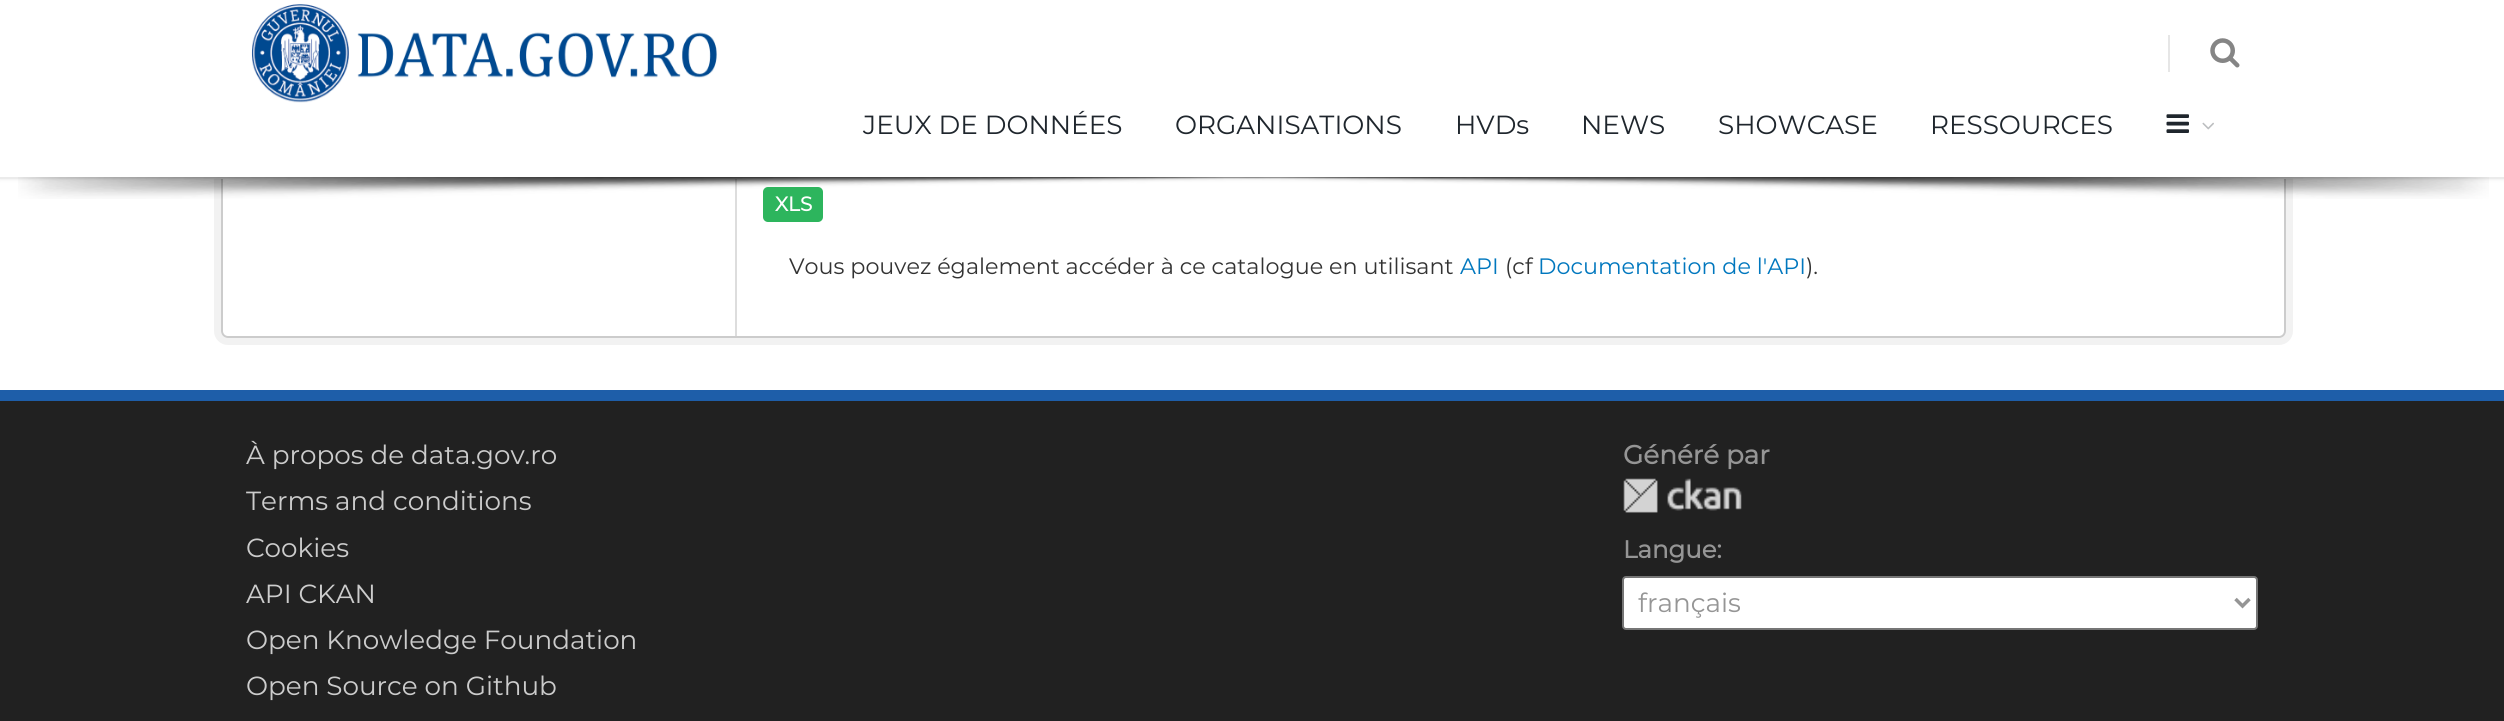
#include <cairo.h>
#include <math.h>
#include <stddef.h>


static void rgb(cairo_t *cr, int r, int g, int b)
{
	cairo_set_source_rgb(cr, r / 255.0, g / 255.0, b / 255.0);
}

static void face(cairo_t *cr, const char *family, double size, int italic, int bold)
{
	cairo_select_font_face(cr, family, italic ? CAIRO_FONT_SLANT_ITALIC : CAIRO_FONT_SLANT_NORMAL,
		bold ? CAIRO_FONT_WEIGHT_BOLD : CAIRO_FONT_WEIGHT_NORMAL);
	cairo_set_font_size(cr, size);
}

static void label(cairo_t *cr, double x, double y, const char *s)
{
	cairo_move_to(cr, x, y);
	cairo_show_text(cr, s);
}

static void rect(cairo_t *cr, double x, double y, double w, double h)
{
	cairo_rectangle(cr, x, y, w, h);
	cairo_fill(cr);
}

static void rrect(cairo_t *cr, double x, double y, double w, double h, double r)
{
	cairo_new_sub_path(cr);
	cairo_arc(cr, x + w - r, y + h - r, r, 0, M_PI / 2);
	cairo_arc(cr, x + r, y + h - r, r, M_PI / 2, M_PI);
	cairo_arc(cr, x + r, y + r, r, M_PI, 1.5 * M_PI);
	cairo_arc(cr, x + w - r, y + r, r, 1.5 * M_PI, 2 * M_PI);
	cairo_close_path(cr);
}

static void soft_shadow(cairo_t *cr, double x, double y, double w, double h, double r, double blur, double alpha)
{
	cairo_push_group_with_content(cr, CAIRO_CONTENT_ALPHA);
	cairo_set_operator(cr, CAIRO_OPERATOR_SOURCE);
	for (int i = 15; i >= -15 && fmin(w, h) + blur * i / 3 > 0; i -= 2) {
		double e = blur * i / 6;
		cairo_set_source_rgba(cr, 0, 0, 0, alpha * erfc((i - 1) / 8.5) / 2);
		rrect(cr, x - e, y - e, w + 2 * e, h + 2 * e, fmax(0, fmin(r + e + blur * .6, fmin(w, h) / 2 + e)));
		cairo_fill(cr);
	}
	cairo_pattern_t *soft = cairo_pop_group(cr);
	cairo_mask(cr, soft);
	cairo_pattern_destroy(soft);
}

static void image(cairo_t *cr, const char *path, double x, double y, double w, double h)
{
	cairo_surface_t *image = cairo_image_surface_create_from_png(path);
	cairo_save(cr);
	cairo_set_source_surface(cr, image, x, y);
	cairo_rectangle(cr, x, y, w, h);
	cairo_fill(cr);
	cairo_restore(cr);
	cairo_surface_destroy(image);
}

static void draw(cairo_t *cr) {
	rgb(cr, 255, 255, 255);
	cairo_paint(cr);
	rrect(cr, 217.5, -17.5, 2072, 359, 10.5);
	rgb(cr, 242, 242, 242);
	cairo_set_line_width(cr, 7);
	cairo_stroke(cr);
	rgb(cr, 255, 255, 255);
	rrect(cr, 222, -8, 2063, 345, 6);
	cairo_fill_preserve(cr);
	rgb(cr, 204, 204, 204);
	cairo_set_line_width(cr, 2);
	cairo_stroke(cr);
	rgb(cr, 221, 221, 221);
	rect(cr, 735, 179, 2, 157);
	rgb(cr, 0, 0, 0);
	soft_shadow(cr, 0, 0, 2504, 179, 0, 2, 0.1);
	rgb(cr, 255, 255, 255);
	rect(cr, 0, 0, 2504, 177);
	rgb(cr, 235, 235, 235);
	rect(cr, 0, 177, 2504, 2);
	image(cr, "image0.png", 251, 4, 466, 99);
	rgb(cr, 230, 230, 230);
	rect(cr, 2168, 35, 2, 37);
	image(cr, "image1.png", 2210, 38, 30, 30);
	face(cr, "Montserrat Thin", 26.25, 0, 0);
	rgb(cr, 31, 38, 45);
	label(cr, 863, 134, "JEUX DE DONNÉES");
	label(cr, 1175, 134, "ORGANISATIONS");
	label(cr, 1455, 134, "HVDs");
	label(cr, 1581, 134, "NEWS");
	label(cr, 1718, 134, "SHOWCASE");
	label(cr, 1930, 134, "RESSOURCES");
	image(cr, "image2.png", 2166, 114, 23, 19);
	image(cr, "image3.png", 2202, 122, 12, 8);
	rgb(cr, 45, 181, 93);
	rrect(cr, 763, 187, 60, 35, 5);
	cairo_fill(cr);
	face(cr, "Montserrat", 20, 0, 1);
	rgb(cr, 255, 255, 255);
	label(cr, 775, 211, "XLS");
	image(cr, "image4.png", 18, 177, 2471, 22);
	face(cr, "Montserrat Thin", 22.3, 0, 0);
	rgb(cr, 51, 51, 51);
	label(cr, 789, 274, "Vous pouvez également accéder à ce catalogue en utilisant");
	rgb(cr, 0, 119, 190);
	label(cr, 1460, 274, "API");
	rgb(cr, 51, 51, 51);
	label(cr, 1505, 274, "(cf");
	rgb(cr, 0, 119, 190);
	label(cr, 1538, 274, "Documentation de l'API");
	rgb(cr, 51, 51, 51);
	label(cr, 1806, 274, ").");
	rgb(cr, 33, 33, 33);
	rect(cr, 0, 401, 2504, 320);
	rgb(cr, 30, 94, 169);
	rect(cr, 0, 390, 2504, 11);
	face(cr, "Montserrat Thin", 26.25, 0, 0);
	rgb(cr, 204, 204, 204);
	label(cr, 246, 464, "À propos de data.gov.ro");
	label(cr, 246, 510, "Terms and conditions");
	label(cr, 246, 557, "Cookies");
	label(cr, 246, 603, "API CKAN");
	label(cr, 246, 649, "Open Knowledge Foundation");
	label(cr, 246, 695, "Open Source on Github");
	face(cr, "Montserrat", 26.25, 0, 1);
	rgb(cr, 149, 149, 149);
	label(cr, 1623, 464, "Généré par");
	image(cr, "image5.png", 1623, 478, 119, 35);
	face(cr, "Montserrat", 24.5, 0, 1);
	label(cr, 1623, 558, "Langue:");
	rgb(cr, 255, 255, 255);
	rrect(cr, 1623, 577, 634, 52, 3);
	cairo_fill_preserve(cr);
	rgb(cr, 118, 118, 118);
	cairo_stroke(cr);
	cairo_new_path(cr);
	cairo_move_to(cr, 2235.5, 599);
	cairo_line_to(cr, 2242.5, 606);
	cairo_line_to(cr, 2249.5, 599);
	rgb(cr, 149, 149, 149);
	cairo_set_line_width(cr, 3.5);
	cairo_stroke(cr);
	face(cr, "Montserrat Thin", 26.25, 0, 0);
	label(cr, 1638, 612, "français");
}

int main(void) {
	cairo_surface_t *surface = cairo_image_surface_create(CAIRO_FORMAT_RGB24, 2504, 721);
	cairo_t *cr = cairo_create(surface);
	cairo_font_options_t *options = cairo_font_options_create();
	cairo_font_options_set_hint_metrics(options, CAIRO_HINT_METRICS_OFF);
	cairo_font_options_set_hint_style(options, CAIRO_HINT_STYLE_NONE);
	cairo_set_font_options(cr, options);
	cairo_set_miter_limit(cr, 4);
	draw(cr);
	cairo_surface_write_to_png(surface, "render.png");
	cairo_font_options_destroy(options);
	cairo_destroy(cr);
	cairo_surface_destroy(surface);
	return 0;
}
